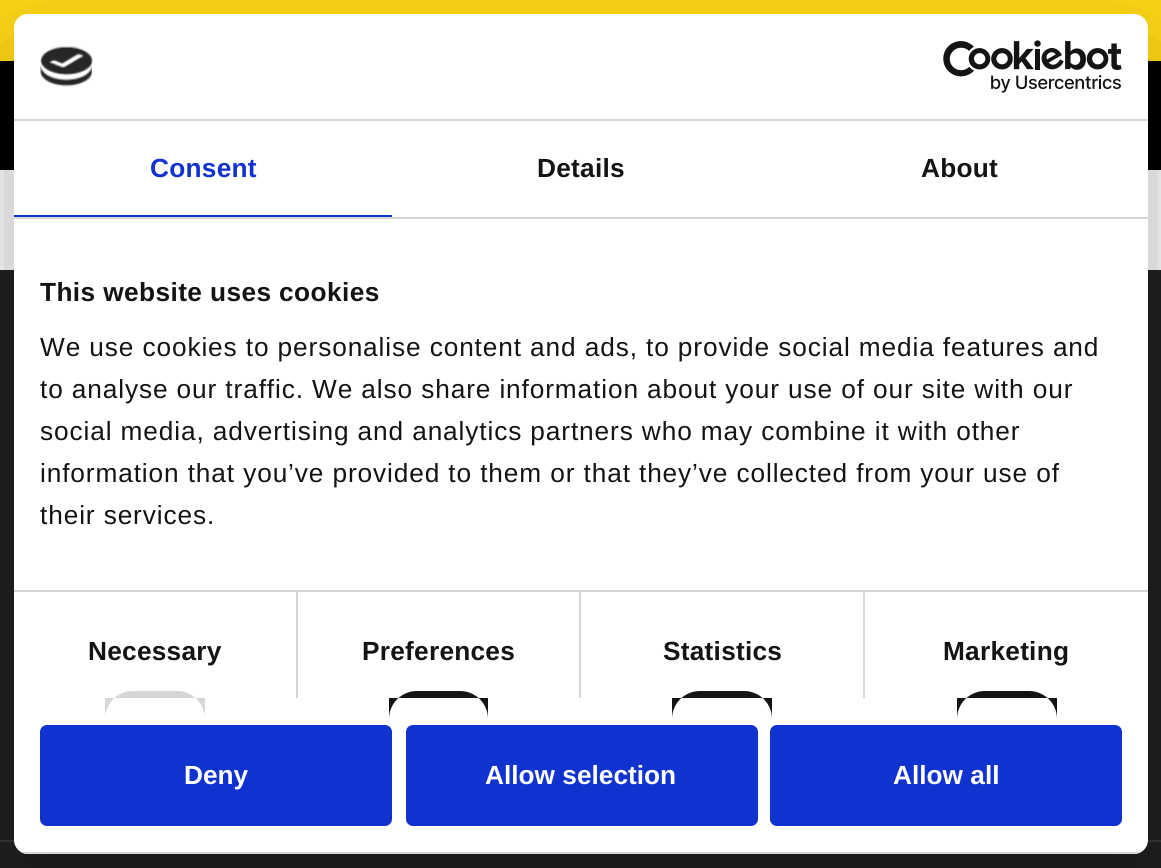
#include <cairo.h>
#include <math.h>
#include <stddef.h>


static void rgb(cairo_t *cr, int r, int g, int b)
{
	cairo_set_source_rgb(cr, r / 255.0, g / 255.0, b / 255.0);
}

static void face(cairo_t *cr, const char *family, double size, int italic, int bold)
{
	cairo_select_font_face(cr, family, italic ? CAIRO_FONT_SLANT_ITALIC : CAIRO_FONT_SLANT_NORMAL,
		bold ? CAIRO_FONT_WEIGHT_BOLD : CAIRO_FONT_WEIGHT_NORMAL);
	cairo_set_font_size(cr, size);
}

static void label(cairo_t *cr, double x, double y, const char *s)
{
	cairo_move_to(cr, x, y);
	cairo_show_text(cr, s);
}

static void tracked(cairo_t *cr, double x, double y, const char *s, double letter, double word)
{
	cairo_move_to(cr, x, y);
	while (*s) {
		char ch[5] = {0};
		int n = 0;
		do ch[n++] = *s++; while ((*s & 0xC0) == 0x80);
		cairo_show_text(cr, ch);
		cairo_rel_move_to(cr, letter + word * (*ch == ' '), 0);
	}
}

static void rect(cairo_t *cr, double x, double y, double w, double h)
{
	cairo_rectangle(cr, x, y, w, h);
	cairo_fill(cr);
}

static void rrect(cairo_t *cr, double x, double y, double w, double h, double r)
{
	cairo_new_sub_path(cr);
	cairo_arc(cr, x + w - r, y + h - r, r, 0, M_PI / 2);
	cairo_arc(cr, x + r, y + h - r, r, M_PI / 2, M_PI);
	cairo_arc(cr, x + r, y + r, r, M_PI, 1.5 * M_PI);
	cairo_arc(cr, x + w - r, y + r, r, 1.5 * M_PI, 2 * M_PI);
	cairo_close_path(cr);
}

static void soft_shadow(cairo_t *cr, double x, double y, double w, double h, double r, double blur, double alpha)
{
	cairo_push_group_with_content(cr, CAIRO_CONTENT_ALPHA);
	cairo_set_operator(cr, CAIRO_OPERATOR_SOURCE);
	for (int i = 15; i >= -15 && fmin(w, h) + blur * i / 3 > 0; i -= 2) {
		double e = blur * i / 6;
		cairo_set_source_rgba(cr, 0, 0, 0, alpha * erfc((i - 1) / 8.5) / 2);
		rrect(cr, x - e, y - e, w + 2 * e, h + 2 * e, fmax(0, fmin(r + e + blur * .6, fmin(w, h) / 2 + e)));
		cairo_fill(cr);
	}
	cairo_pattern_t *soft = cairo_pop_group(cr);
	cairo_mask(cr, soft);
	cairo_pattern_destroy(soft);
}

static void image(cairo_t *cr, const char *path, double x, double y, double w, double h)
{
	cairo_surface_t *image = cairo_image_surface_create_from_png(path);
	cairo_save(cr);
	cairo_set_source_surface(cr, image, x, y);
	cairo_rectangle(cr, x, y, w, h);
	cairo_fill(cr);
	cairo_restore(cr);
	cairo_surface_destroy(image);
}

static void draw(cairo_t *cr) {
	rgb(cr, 255, 255, 255);
	cairo_paint(cr);
	rgb(cr, 254, 214, 22);
	rect(cr, 0, 0, 1161, 61);
	rgb(cr, 0, 0, 0);
	rect(cr, 0, 61, 1161, 109);
	rgb(cr, 33, 33, 33);
	rect(cr, 0, 270, 1161, 570);
	rect(cr, 0, 842, 1161, 26);
	rgb(cr, 55, 55, 55);
	rect(cr, 0, 840, 1161, 2);
	rgb(cr, 0, 0, 0);
	soft_shadow(cr, 14, 70, 1134, 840, 14, 59.5, 0.3);
	rgb(cr, 255, 255, 255);
	rrect(cr, 14, 14, 1134, 840, 14);
	cairo_fill(cr);
	rgb(cr, 214, 214, 214);
	rect(cr, 14, 119, 1134, 2);
	image(cr, "image0.png", 40, 46, 53, 41);
	image(cr, "image1.png", 943, 40, 179, 53);
	rect(cr, 14, 217, 1134, 2);
	rgb(cr, 16, 50, 207);
	rect(cr, 14, 215, 378, 2);
	face(cr, "Liberation Sans", 26.25, 0, 1);
	tracked(cr, 150, 177, "Consent", 0.25, 0);
	rgb(cr, 20, 20, 20);
	tracked(cr, 537, 177, "Details", 0.25, 0);
	tracked(cr, 921, 177, "About", 0.25, 0);
	rgb(cr, 214, 214, 214);
	rect(cr, 14, 590, 1134, 2);
	rgb(cr, 20, 20, 20);
	tracked(cr, 40, 301, "This website uses cookies", 0.4, 0);
	face(cr, "Liberation Sans", 26.25, 0, 0);
	tracked(cr, 40, 356, "We use cookies to personalise content and ads, to provide social media features and", 0.88, 0);
	tracked(cr, 40, 398, "to analyse our traffic. We also share information about your use of our site with our", 0.88, 0);
	tracked(cr, 40, 440, "social media, advertising and analytics partners who may combine it with other", 0.88, 0);
	tracked(cr, 40, 482, "information that you’ve provided to them or that they’ve collected from your use of", 0.88, 0);
	tracked(cr, 40, 524, "their services.", 0.88, 0);
	rgb(cr, 214, 214, 214);
	rect(cr, 296, 592, 2, 106);
	face(cr, "Liberation Sans", 26.25, 0, 1);
	rgb(cr, 20, 20, 20);
	tracked(cr, 88, 660, "Necessary", 0.25, 0);
	rgb(cr, 214, 214, 214);
	cairo_new_path(cr);
	cairo_move_to(cr, 133, 691);
	cairo_line_to(cr, 177, 691);
	cairo_curve_to(cr, 192.5, 691, 205, 703.5, 205, 719);
	cairo_line_to(cr, 205, 698);
	cairo_line_to(cr, 105, 698);
	cairo_line_to(cr, 105, 719);
	cairo_curve_to(cr, 105, 703.5, 117.5, 691, 133, 691);
	cairo_close_path(cr);
	cairo_fill(cr);
	rect(cr, 579, 592, 2, 106);
	rgb(cr, 20, 20, 20);
	tracked(cr, 362, 660, "Preferences", 0.25, 0);
	cairo_new_path(cr);
	cairo_move_to(cr, 417, 691);
	cairo_line_to(cr, 460, 691);
	cairo_curve_to(cr, 475.5, 691, 488, 703.5, 488, 719);
	cairo_line_to(cr, 488, 698);
	cairo_line_to(cr, 389, 698);
	cairo_line_to(cr, 389, 719);
	cairo_curve_to(cr, 389, 703.5, 401.5, 691, 417, 691);
	cairo_close_path(cr);
	cairo_fill(cr);
	rgb(cr, 214, 214, 214);
	rect(cr, 863, 592, 2, 106);
	rgb(cr, 20, 20, 20);
	tracked(cr, 663, 660, "Statistics", 0.25, 0);
	cairo_new_path(cr);
	cairo_move_to(cr, 700, 691);
	cairo_line_to(cr, 744, 691);
	cairo_curve_to(cr, 759.5, 691, 772, 703.5, 772, 719);
	cairo_line_to(cr, 772, 698);
	cairo_line_to(cr, 672, 698);
	cairo_line_to(cr, 672, 719);
	cairo_curve_to(cr, 672, 703.5, 684.5, 691, 700, 691);
	cairo_close_path(cr);
	cairo_fill(cr);
	tracked(cr, 943, 660, "Marketing", 0.25, 0);
	cairo_new_path(cr);
	cairo_move_to(cr, 985, 691);
	cairo_line_to(cr, 1029, 691);
	cairo_curve_to(cr, 1044.5, 691, 1057, 703.5, 1057, 719);
	cairo_line_to(cr, 1057, 698);
	cairo_line_to(cr, 957, 698);
	cairo_line_to(cr, 957, 719);
	cairo_curve_to(cr, 957, 703.5, 969.5, 691, 985, 691);
	cairo_close_path(cr);
	cairo_fill(cr);
	cairo_save(cr);
	rrect(cr, 14, 14, 1134, 840, 14);
	cairo_clip(cr);
	rgb(cr, 214, 214, 214);
	rect(cr, 14, 852, 1134, 2);
	cairo_restore(cr);
	rgb(cr, 16, 50, 207);
	rrect(cr, 42, 727, 348, 97, 5);
	cairo_fill_preserve(cr);
	cairo_set_line_width(cr, 4);
	cairo_stroke(cr);
	rgb(cr, 255, 255, 255);
	label(cr, 184, 784, "Deny");
	rgb(cr, 16, 50, 207);
	rrect(cr, 408, 727, 348, 97, 5);
	cairo_fill_preserve(cr);
	cairo_stroke(cr);
	rgb(cr, 255, 255, 255);
	label(cr, 485, 784, "Allow selection");
	rgb(cr, 16, 50, 207);
	rrect(cr, 772, 727, 348, 97, 5);
	cairo_fill_preserve(cr);
	cairo_stroke(cr);
	rgb(cr, 255, 255, 255);
	label(cr, 893, 784, "Allow all");
}

int main(void) {
	cairo_surface_t *surface = cairo_image_surface_create(CAIRO_FORMAT_RGB24, 1161, 868);
	cairo_t *cr = cairo_create(surface);
	cairo_font_options_t *options = cairo_font_options_create();
	cairo_font_options_set_hint_metrics(options, CAIRO_HINT_METRICS_OFF);
	cairo_font_options_set_hint_style(options, CAIRO_HINT_STYLE_NONE);
	cairo_set_font_options(cr, options);
	cairo_set_miter_limit(cr, 4);
	draw(cr);
	cairo_surface_write_to_png(surface, "render.png");
	cairo_font_options_destroy(options);
	cairo_destroy(cr);
	cairo_surface_destroy(surface);
	return 0;
}
